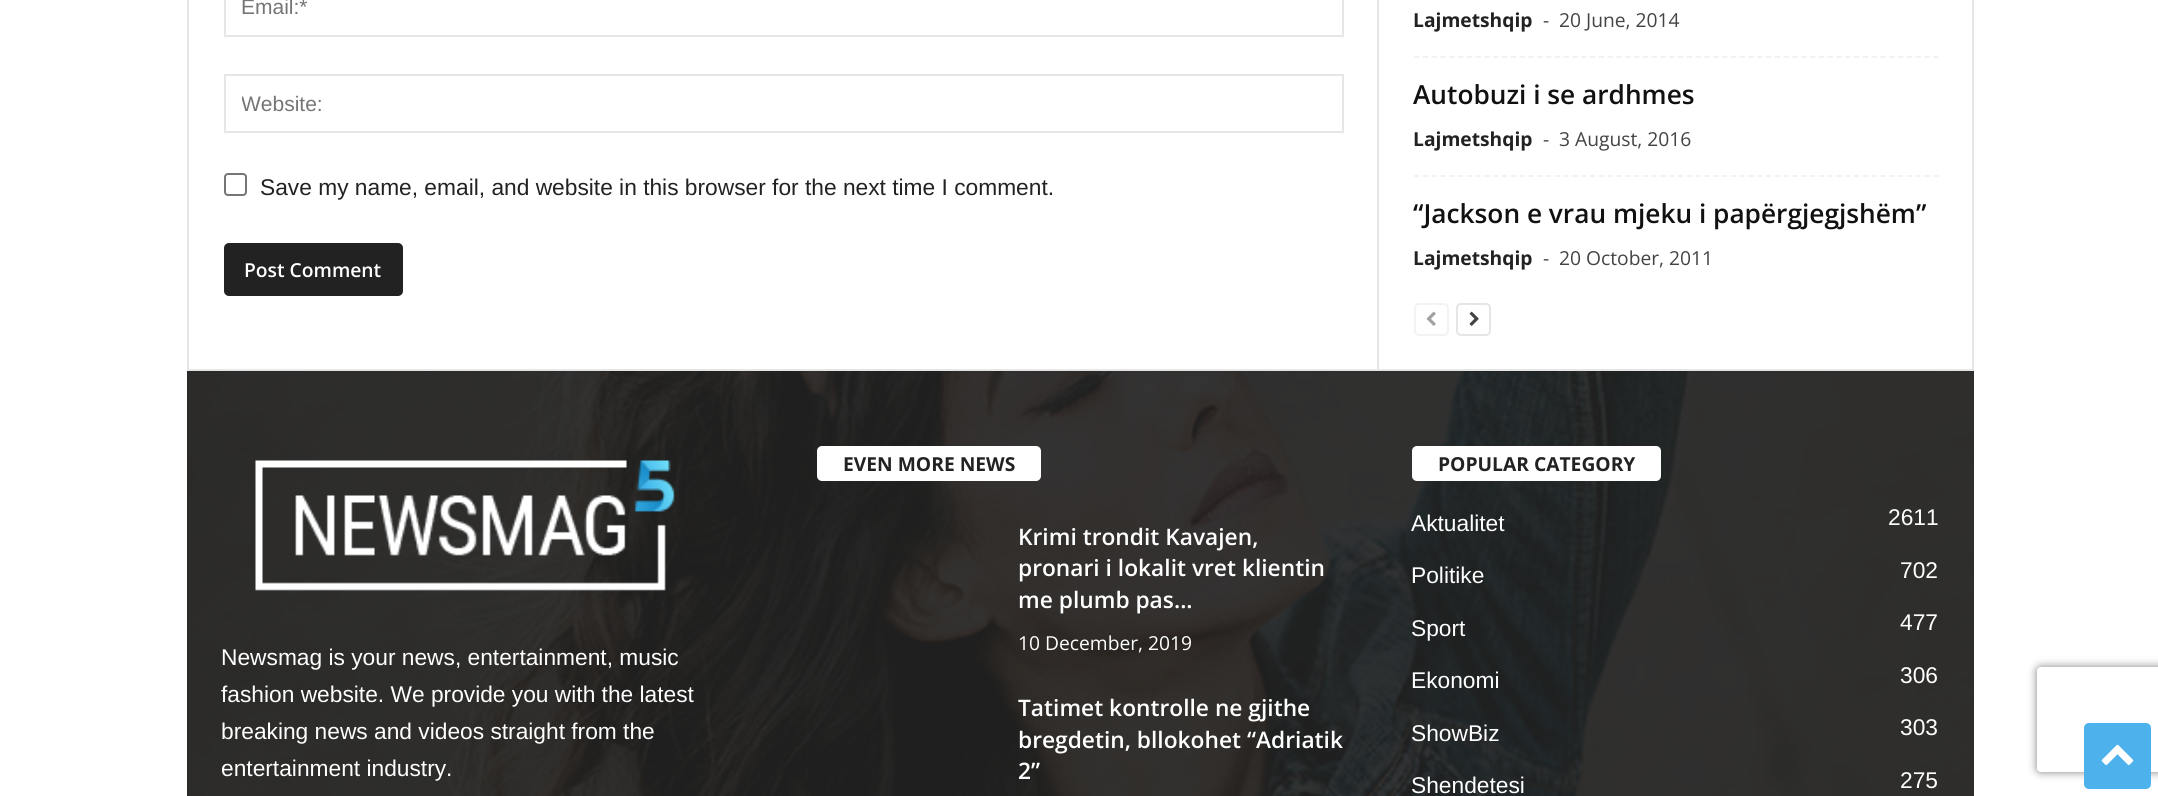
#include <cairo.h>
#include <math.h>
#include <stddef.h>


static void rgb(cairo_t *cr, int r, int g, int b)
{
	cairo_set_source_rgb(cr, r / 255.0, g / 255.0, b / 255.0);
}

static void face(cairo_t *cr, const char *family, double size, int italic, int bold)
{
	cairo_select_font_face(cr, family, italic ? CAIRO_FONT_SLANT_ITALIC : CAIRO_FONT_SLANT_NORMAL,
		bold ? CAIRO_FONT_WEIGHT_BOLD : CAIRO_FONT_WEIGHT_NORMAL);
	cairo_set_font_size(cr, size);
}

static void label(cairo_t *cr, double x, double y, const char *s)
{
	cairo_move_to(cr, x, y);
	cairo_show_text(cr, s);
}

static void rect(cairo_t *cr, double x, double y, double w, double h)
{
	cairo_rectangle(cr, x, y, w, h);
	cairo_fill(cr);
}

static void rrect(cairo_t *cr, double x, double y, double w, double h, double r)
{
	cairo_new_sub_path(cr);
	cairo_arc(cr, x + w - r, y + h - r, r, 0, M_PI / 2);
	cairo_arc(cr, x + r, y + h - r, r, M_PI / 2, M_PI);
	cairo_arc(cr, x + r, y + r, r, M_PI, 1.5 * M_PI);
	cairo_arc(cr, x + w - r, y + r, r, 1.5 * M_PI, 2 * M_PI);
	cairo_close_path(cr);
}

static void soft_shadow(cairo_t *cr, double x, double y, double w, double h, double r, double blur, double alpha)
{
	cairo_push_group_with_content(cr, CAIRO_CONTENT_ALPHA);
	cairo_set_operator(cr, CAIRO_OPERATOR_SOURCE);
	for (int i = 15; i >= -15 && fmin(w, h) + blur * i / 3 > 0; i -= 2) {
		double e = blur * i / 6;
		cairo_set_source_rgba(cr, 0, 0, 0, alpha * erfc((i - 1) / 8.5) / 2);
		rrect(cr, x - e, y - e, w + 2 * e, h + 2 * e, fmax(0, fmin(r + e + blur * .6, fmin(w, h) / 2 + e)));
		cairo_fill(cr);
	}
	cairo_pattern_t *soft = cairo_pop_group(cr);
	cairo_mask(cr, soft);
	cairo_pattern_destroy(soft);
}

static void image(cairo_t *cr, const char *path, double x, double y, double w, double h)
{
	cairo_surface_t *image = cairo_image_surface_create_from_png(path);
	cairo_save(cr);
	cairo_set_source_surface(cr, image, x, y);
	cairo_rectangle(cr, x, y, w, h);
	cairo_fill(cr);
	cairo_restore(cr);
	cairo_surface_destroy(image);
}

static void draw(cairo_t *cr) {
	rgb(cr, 255, 255, 255);
	cairo_paint(cr);
	rgb(cr, 230, 230, 230);
	rect(cr, 187, 369, 1787, 2);
	rect(cr, 187, 0, 2, 369);
	cairo_rectangle(cr, 225, -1, 1118, 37);
	cairo_stroke(cr);
	face(cr, "Liberation Sans", 21, 0, 0);
	rgb(cr, 117, 117, 117);
	label(cr, 241, 14, "Email:*");
	cairo_rectangle(cr, 225, 75, 1118, 57);
	rgb(cr, 230, 230, 230);
	cairo_stroke(cr);
	cairo_save(cr);
	cairo_rectangle(cr, 242, 91, 1085, 25);
	cairo_clip(cr);
	rgb(cr, 117, 117, 117);
	label(cr, 241, 111, "Website:");
	cairo_restore(cr);
	rrect(cr, 225, 174, 21, 21, 3);
	rgb(cr, 118, 118, 118);
	cairo_stroke(cr);
	face(cr, "Liberation Sans", 22.75, 0, 0);
	rgb(cr, 34, 34, 34);
	label(cr, 260, 195, "Save my name, email, and website in this browser for the next time I comment.");
	rrect(cr, 224, 243, 179, 53, 5);
	cairo_fill(cr);
	face(cr, "Open Sans SemiBold", 19.25, 0, 0);
	rgb(cr, 255, 255, 255);
	label(cr, 244, 277, "Post Comment");
	rgb(cr, 230, 230, 230);
	rect(cr, 1377, 0, 2, 369);
	cairo_new_path(cr);
	cairo_move_to(cr, 1414, 57);
	cairo_line_to(cr, 1939, 57);
	rgb(cr, 241, 241, 241);
	cairo_set_line_width(cr, 1.8);
	cairo_set_dash(cr, (double[]){5.25, 3.55}, 2, 0);
	cairo_stroke(cr);
	face(cr, "Open Sans", 19.25, 0, 1);
	rgb(cr, 34, 34, 34);
	label(cr, 1413, 27, "Lajmetshqip");
	face(cr, "Open Sans", 19.25, 0, 0);
	rgb(cr, 68, 68, 68);
	label(cr, 1543, 27, "-");
	label(cr, 1559, 27, "20 June, 2014");
	cairo_new_path(cr);
	cairo_move_to(cr, 1414, 176);
	cairo_line_to(cr, 1939, 176);
	rgb(cr, 241, 241, 241);
	cairo_stroke(cr);
	face(cr, "Open Sans SemiBold", 26.25, 0, 0);
	rgb(cr, 17, 17, 17);
	label(cr, 1413, 104, "Autobuzi i se ardhmes");
	face(cr, "Open Sans", 19.25, 0, 1);
	rgb(cr, 34, 34, 34);
	label(cr, 1413, 146, "Lajmetshqip");
	face(cr, "Open Sans", 19.25, 0, 0);
	rgb(cr, 68, 68, 68);
	label(cr, 1543, 146, "-");
	label(cr, 1559, 146, "3 August, 2016");
	face(cr, "Open Sans SemiBold", 26.25, 0, 0);
	rgb(cr, 17, 17, 17);
	label(cr, 1413, 223, "“Jackson e vrau mjeku i papërgjegjshëm”");
	face(cr, "Open Sans", 19.25, 0, 1);
	rgb(cr, 34, 34, 34);
	label(cr, 1413, 265, "Lajmetshqip");
	face(cr, "Open Sans", 19.25, 0, 0);
	rgb(cr, 68, 68, 68);
	label(cr, 1543, 265, "-");
	label(cr, 1559, 265, "20 October, 2011");
	rrect(cr, 1415, 304, 33, 31, 4);
	rgb(cr, 243, 243, 243);
	cairo_set_line_width(cr, 2);
	cairo_set_dash(cr, NULL, 0, 0);
	cairo_stroke(cr);
	image(cr, "image0.png", 1426, 311, 10, 15);
	rrect(cr, 1457, 304, 33, 31, 4);
	rgb(cr, 230, 230, 230);
	cairo_stroke(cr);
	image(cr, "image1.png", 1469, 311, 10, 15);
	rect(cr, 1972, 0, 2, 369);
	rgb(cr, 34, 34, 34);
	rect(cr, 187, 371, 1787, 425);
	image(cr, "image2.png", 187, 371, 1787, 425);
	image(cr, "image3.png", 255, 460, 420, 131);
	face(cr, "Liberation Sans", 22.75, 0, 0);
	rgb(cr, 255, 255, 255);
	label(cr, 221, 665, "Newsmag is your news, entertainment, music");
	label(cr, 221, 702, "fashion website. We provide you with the latest");
	label(cr, 221, 739, "breaking news and videos straight from the");
	label(cr, 221, 776, "entertainment industry.");
	rrect(cr, 817, 446, 224, 35, 5);
	cairo_fill(cr);
	face(cr, "Open Sans", 19.25, 0, 1);
	rgb(cr, 34, 34, 34);
	label(cr, 843, 471, "EVEN MORE NEWS");
	face(cr, "Open Sans SemiBold", 22.75, 0, 0);
	rgb(cr, 255, 255, 255);
	label(cr, 1018, 545, "Krimi trondit Kavajen,");
	label(cr, 1018, 576, "pronari i lokalit vret klientin");
	label(cr, 1018, 608, "me plumb pas...");
	face(cr, "Open Sans", 19.25, 0, 0);
	label(cr, 1018, 650, "10 December, 2019");
	face(cr, "Open Sans SemiBold", 22.75, 0, 0);
	label(cr, 1018, 716, "Tatimet kontrolle ne gjithe");
	label(cr, 1018, 748, "bregdetin, bllokohet “Adriatik");
	label(cr, 1018, 779, "2”");
	rrect(cr, 1412, 446, 249, 35, 5);
	cairo_fill(cr);
	face(cr, "Open Sans", 19.25, 0, 1);
	rgb(cr, 34, 34, 34);
	label(cr, 1438, 471, "POPULAR CATEGORY");
	face(cr, "Liberation Sans", 22.75, 0, 0);
	rgb(cr, 255, 255, 255);
	label(cr, 1411, 531, "Aktualitet");
	label(cr, 1888, 525, "2611");
	label(cr, 1411, 583, "Politike");
	label(cr, 1900, 578, "702");
	label(cr, 1411, 636, "Sport");
	label(cr, 1900, 630, "477");
	label(cr, 1411, 688, "Ekonomi");
	label(cr, 1900, 683, "306");
	label(cr, 1411, 741, "ShowBiz");
	label(cr, 1900, 735, "303");
	label(cr, 1411, 793, "Shendetesi");
	label(cr, 1900, 788, "275");
	cairo_save(cr);
	cairo_set_fill_rule(cr, CAIRO_FILL_RULE_EVEN_ODD);
	cairo_new_path(cr);
	cairo_move_to(cr, 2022, 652);
	cairo_line_to(cr, 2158, 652);
	cairo_line_to(cr, 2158, 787);
	cairo_line_to(cr, 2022, 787);
	cairo_close_path(cr);
	cairo_move_to(cr, 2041, 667);
	cairo_line_to(cr, 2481, 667);
	cairo_curve_to(cr, 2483, 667, 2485, 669, 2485, 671);
	cairo_line_to(cr, 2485, 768);
	cairo_curve_to(cr, 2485, 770, 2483, 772, 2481, 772);
	cairo_line_to(cr, 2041, 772);
	cairo_curve_to(cr, 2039, 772, 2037, 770, 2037, 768);
	cairo_line_to(cr, 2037, 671);
	cairo_curve_to(cr, 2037, 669, 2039, 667, 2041, 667);
	cairo_close_path(cr);
	cairo_clip(cr);
	rgb(cr, 128, 128, 128);
	soft_shadow(cr, 2037, 667, 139, 105, 4, 4.5, 1);
	cairo_restore(cr);
	rgb(cr, 77, 178, 236);
	rrect(cr, 2084, 723, 67, 66, 5);
	cairo_fill(cr);
	image(cr, "image4.png", 2101, 744, 33, 21);
}

int main(void) {
	cairo_surface_t *surface = cairo_image_surface_create(CAIRO_FORMAT_RGB24, 2158, 796);
	cairo_t *cr = cairo_create(surface);
	cairo_font_options_t *options = cairo_font_options_create();
	cairo_font_options_set_hint_metrics(options, CAIRO_HINT_METRICS_OFF);
	cairo_font_options_set_hint_style(options, CAIRO_HINT_STYLE_NONE);
	cairo_set_font_options(cr, options);
	cairo_set_miter_limit(cr, 4);
	draw(cr);
	cairo_surface_write_to_png(surface, "render.png");
	cairo_font_options_destroy(options);
	cairo_destroy(cr);
	cairo_surface_destroy(surface);
	return 0;
}
